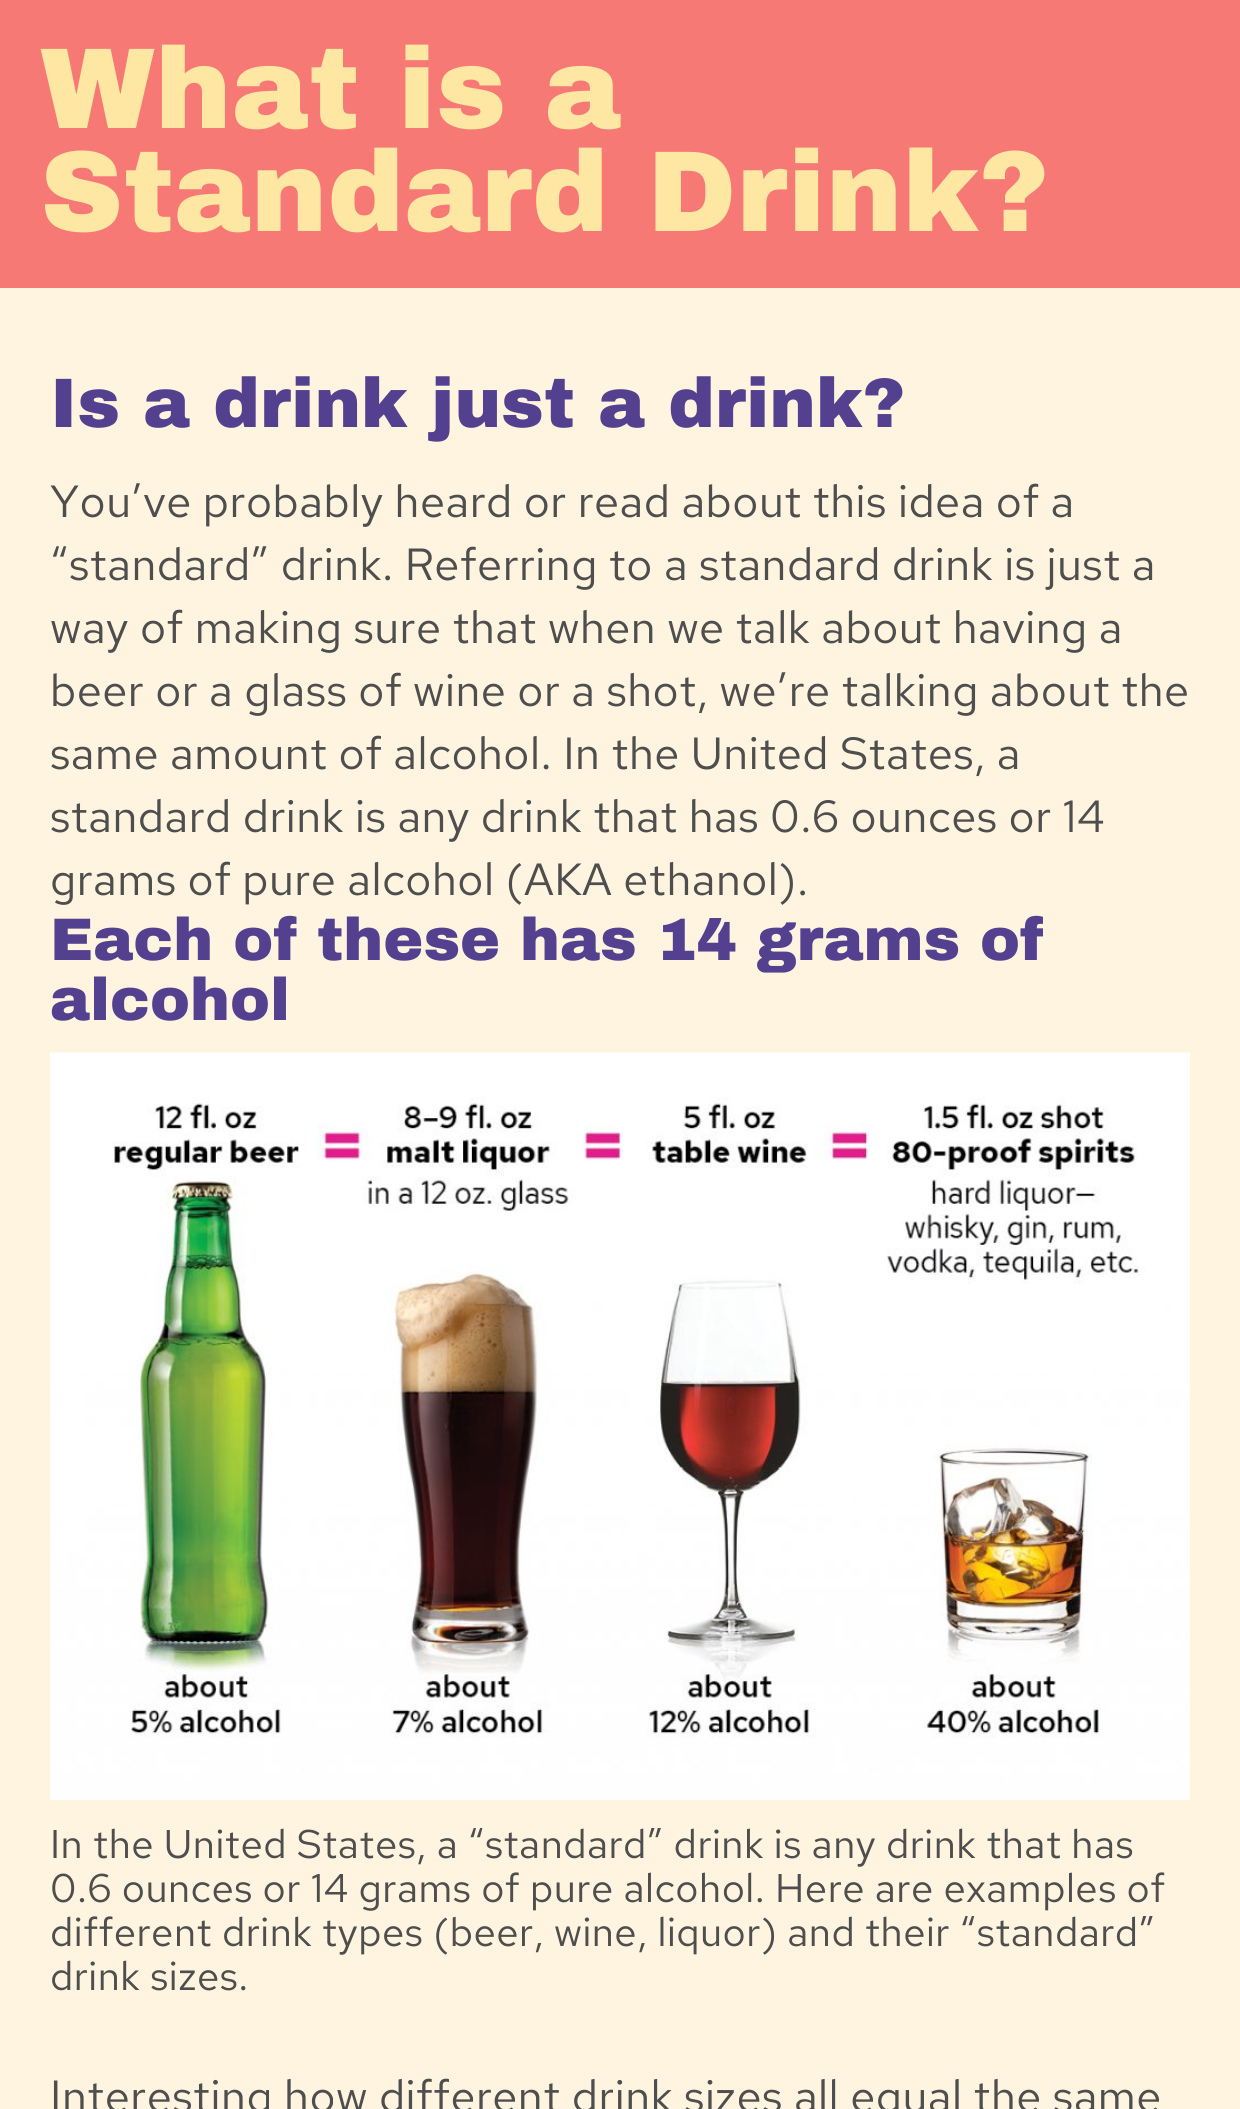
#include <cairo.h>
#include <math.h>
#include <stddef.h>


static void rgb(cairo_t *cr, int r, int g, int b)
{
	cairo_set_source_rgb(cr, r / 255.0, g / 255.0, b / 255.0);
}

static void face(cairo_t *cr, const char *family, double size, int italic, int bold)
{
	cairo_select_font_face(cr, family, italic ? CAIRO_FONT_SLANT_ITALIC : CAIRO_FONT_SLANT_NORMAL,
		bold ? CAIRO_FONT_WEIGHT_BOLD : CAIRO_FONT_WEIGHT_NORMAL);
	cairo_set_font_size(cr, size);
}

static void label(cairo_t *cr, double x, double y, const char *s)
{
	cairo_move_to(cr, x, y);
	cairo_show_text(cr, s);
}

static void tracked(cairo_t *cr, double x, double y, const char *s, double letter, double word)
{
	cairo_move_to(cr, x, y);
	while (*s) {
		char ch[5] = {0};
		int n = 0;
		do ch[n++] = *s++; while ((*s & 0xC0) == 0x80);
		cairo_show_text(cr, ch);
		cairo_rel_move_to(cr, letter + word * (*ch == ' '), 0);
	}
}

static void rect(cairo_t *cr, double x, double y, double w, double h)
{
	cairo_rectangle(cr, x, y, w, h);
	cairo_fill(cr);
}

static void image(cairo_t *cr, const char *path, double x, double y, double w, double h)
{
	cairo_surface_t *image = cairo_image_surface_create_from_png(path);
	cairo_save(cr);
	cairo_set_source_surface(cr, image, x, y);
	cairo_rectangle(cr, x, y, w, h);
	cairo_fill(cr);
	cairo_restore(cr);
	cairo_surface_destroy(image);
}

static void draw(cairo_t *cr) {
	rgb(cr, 247, 121, 118);
	cairo_paint(cr);
	face(cr, "Archivo Black Black", 115, 0, 0);
	rgb(cr, 253, 231, 163);
	label(cr, 40, 128, "What is a");
	label(cr, 40, 231, "Standard Drink?");
	rgb(cr, 255, 244, 223);
	rect(cr, 0, 288, 1240, 1821);
	face(cr, "Archivo Black Black", 70, 0, 0);
	rgb(cr, 83, 65, 144);
	label(cr, 50, 427, "Is a drink just a drink?");
	face(cr, "Red Hat Text", 45, 0, 0);
	rgb(cr, 78, 78, 78);
	tracked(cr, 50, 517, "You’ve probably heard or read about this idea of a", 0.5, 0);
	tracked(cr, 50, 580, "“standard” drink. Referring to a standard drink is just a", 0.5, 0);
	tracked(cr, 50, 643, "way of making sure that when we talk about having a", 0.5, 0);
	tracked(cr, 50, 706, "beer or a glass of wine or a shot, we’re talking about the", 0.5, 0);
	tracked(cr, 50, 769, "same amount of alcohol. In the United States, a", 0.5, 0);
	tracked(cr, 50, 832, "standard drink is any drink that has 0.6 ounces or 14", 0.5, 0);
	tracked(cr, 50, 895, "grams of pure alcohol (AKA ethanol).", 0.5, 0);
	face(cr, "Archivo Black Black", 60, 0, 0);
	rgb(cr, 83, 65, 144);
	label(cr, 50, 960, "Each of these has 14 grams of");
	label(cr, 50, 1020, "alcohol");
	image(cr, "image0.png", 50, 1052, 1140, 748);
	face(cr, "Red Hat Text", 40, 0, 0);
	rgb(cr, 78, 78, 78);
	tracked(cr, 50, 1858, "In the United States, a “standard” drink is any drink that has", 0.5, 0);
	tracked(cr, 50, 1902, "0.6 ounces or 14 grams of pure alcohol. Here are examples of", 0.5, 0);
	tracked(cr, 50, 1946, "different drink types (beer, wine, liquor) and their “standard”", 0.5, 0);
	tracked(cr, 50, 1990, "drink sizes.", 0.5, 0);
	face(cr, "Red Hat Text", 45, 0, 0);
	tracked(cr, 50, 2112, "Interesting how different drink sizes all equal the same", 0.5, 0);
}

int main(void) {
	cairo_surface_t *surface = cairo_image_surface_create(CAIRO_FORMAT_RGB24, 1240, 2109);
	cairo_t *cr = cairo_create(surface);
	cairo_font_options_t *options = cairo_font_options_create();
	cairo_font_options_set_hint_metrics(options, CAIRO_HINT_METRICS_OFF);
	cairo_font_options_set_hint_style(options, CAIRO_HINT_STYLE_NONE);
	cairo_set_font_options(cr, options);
	cairo_set_miter_limit(cr, 4);
	draw(cr);
	cairo_surface_write_to_png(surface, "render.png");
	cairo_font_options_destroy(options);
	cairo_destroy(cr);
	cairo_surface_destroy(surface);
	return 0;
}
